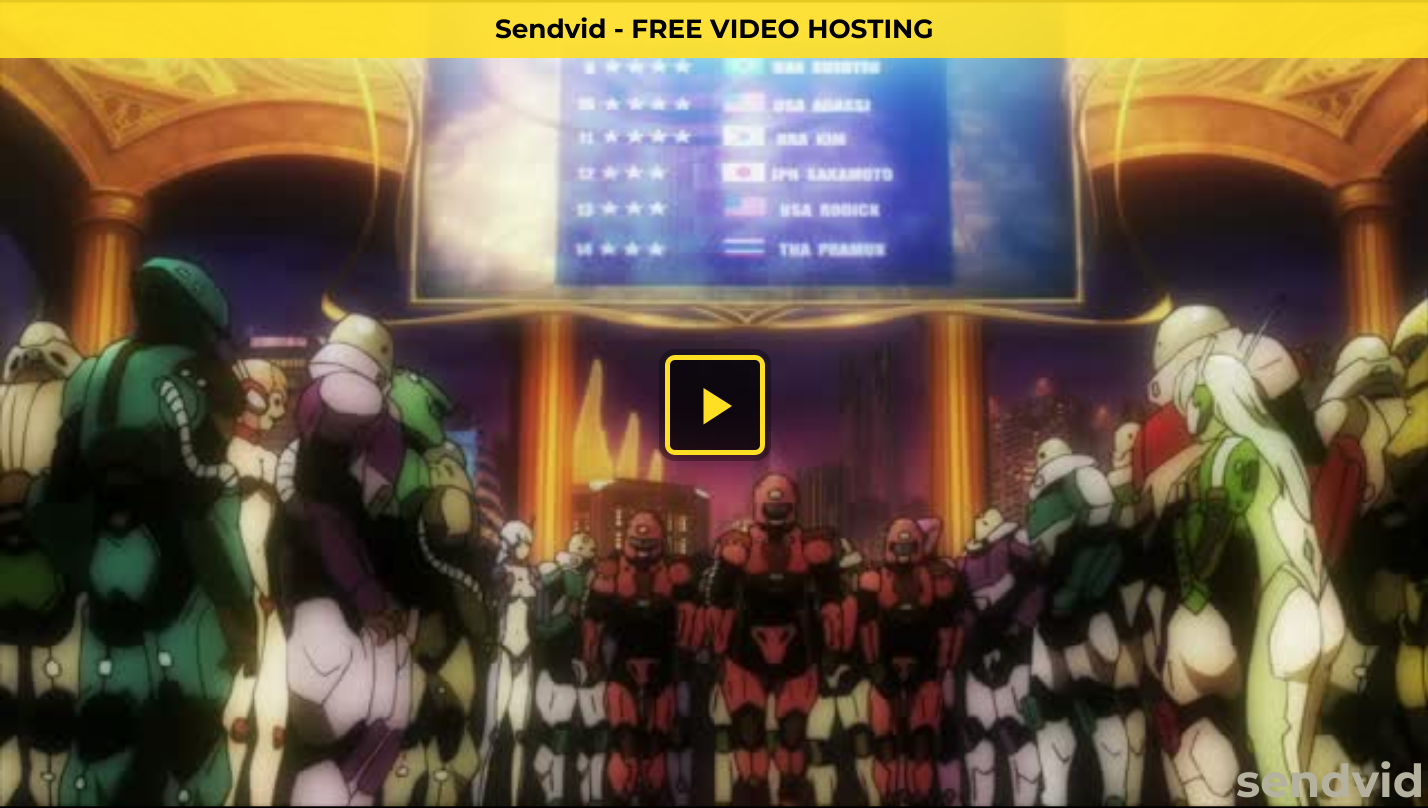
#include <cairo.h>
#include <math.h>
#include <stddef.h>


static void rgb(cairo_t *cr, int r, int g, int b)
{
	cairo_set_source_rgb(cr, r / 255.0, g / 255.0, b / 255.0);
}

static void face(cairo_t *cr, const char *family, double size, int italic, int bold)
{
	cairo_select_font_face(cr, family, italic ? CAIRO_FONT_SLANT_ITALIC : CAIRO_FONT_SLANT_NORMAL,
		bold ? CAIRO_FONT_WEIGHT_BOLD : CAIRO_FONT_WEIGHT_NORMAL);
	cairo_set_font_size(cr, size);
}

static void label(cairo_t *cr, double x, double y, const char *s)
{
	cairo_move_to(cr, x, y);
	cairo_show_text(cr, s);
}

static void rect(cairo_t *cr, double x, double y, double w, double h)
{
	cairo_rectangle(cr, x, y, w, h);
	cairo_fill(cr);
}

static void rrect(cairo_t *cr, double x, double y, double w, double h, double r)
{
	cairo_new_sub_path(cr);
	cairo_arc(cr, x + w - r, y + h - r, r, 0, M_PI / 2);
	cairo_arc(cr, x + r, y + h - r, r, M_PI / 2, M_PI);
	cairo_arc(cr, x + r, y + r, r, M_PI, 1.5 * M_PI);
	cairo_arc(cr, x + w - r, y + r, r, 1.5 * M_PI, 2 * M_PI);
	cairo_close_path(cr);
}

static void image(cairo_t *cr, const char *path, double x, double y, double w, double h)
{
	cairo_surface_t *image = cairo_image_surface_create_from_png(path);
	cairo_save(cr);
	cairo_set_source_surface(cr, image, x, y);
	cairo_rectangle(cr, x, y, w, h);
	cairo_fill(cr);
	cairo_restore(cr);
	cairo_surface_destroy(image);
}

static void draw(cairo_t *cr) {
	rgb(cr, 0, 0, 0);
	cairo_paint(cr);
	image(cr, "image0.png", 0, 2, 1428, 805);
	cairo_set_source_rgba(cr, 1, 0.875, 0.141, 0.9);
	rect(cr, 0, 0, 1428, 58);
	face(cr, "Montserrat", 26.25, 0, 1);
	rgb(cr, 0, 0, 0);
	label(cr, 495, 38, "Sendvid - FREE VIDEO HOSTING");
	cairo_set_source_rgba(cr, 0, 0, 0, 0.7);
	rrect(cr, 667.5, 357.5, 95, 95, 7.5);
	cairo_fill_preserve(cr);
	rgb(cr, 255, 223, 36);
	cairo_set_line_width(cr, 5);
	cairo_stroke(cr);
	rrect(cr, 662, 352, 106, 106, 13);
	cairo_set_source_rgba(cr, 0, 0, 0, 0.35);
	cairo_set_line_width(cr, 6);
	cairo_stroke(cr);
	rgb(cr, 255, 223, 36);
	cairo_new_path(cr);
	cairo_move_to(cr, 703.5, 388);
	cairo_line_to(cr, 703.5, 424.5);
	cairo_line_to(cr, 732, 406);
	cairo_close_path(cr);
	cairo_fill(cr);
	face(cr, "Montserrat", 45.5, 0, 1);
	rgb(cr, 180, 177, 159);
	label(cr, 1236, 797, "sendvid");
}

int main(void) {
	cairo_surface_t *surface = cairo_image_surface_create(CAIRO_FORMAT_RGB24, 1428, 808);
	cairo_t *cr = cairo_create(surface);
	cairo_font_options_t *options = cairo_font_options_create();
	cairo_font_options_set_hint_metrics(options, CAIRO_HINT_METRICS_OFF);
	cairo_font_options_set_hint_style(options, CAIRO_HINT_STYLE_NONE);
	cairo_set_font_options(cr, options);
	cairo_set_miter_limit(cr, 4);
	draw(cr);
	cairo_surface_write_to_png(surface, "render.png");
	cairo_font_options_destroy(options);
	cairo_destroy(cr);
	cairo_surface_destroy(surface);
	return 0;
}
